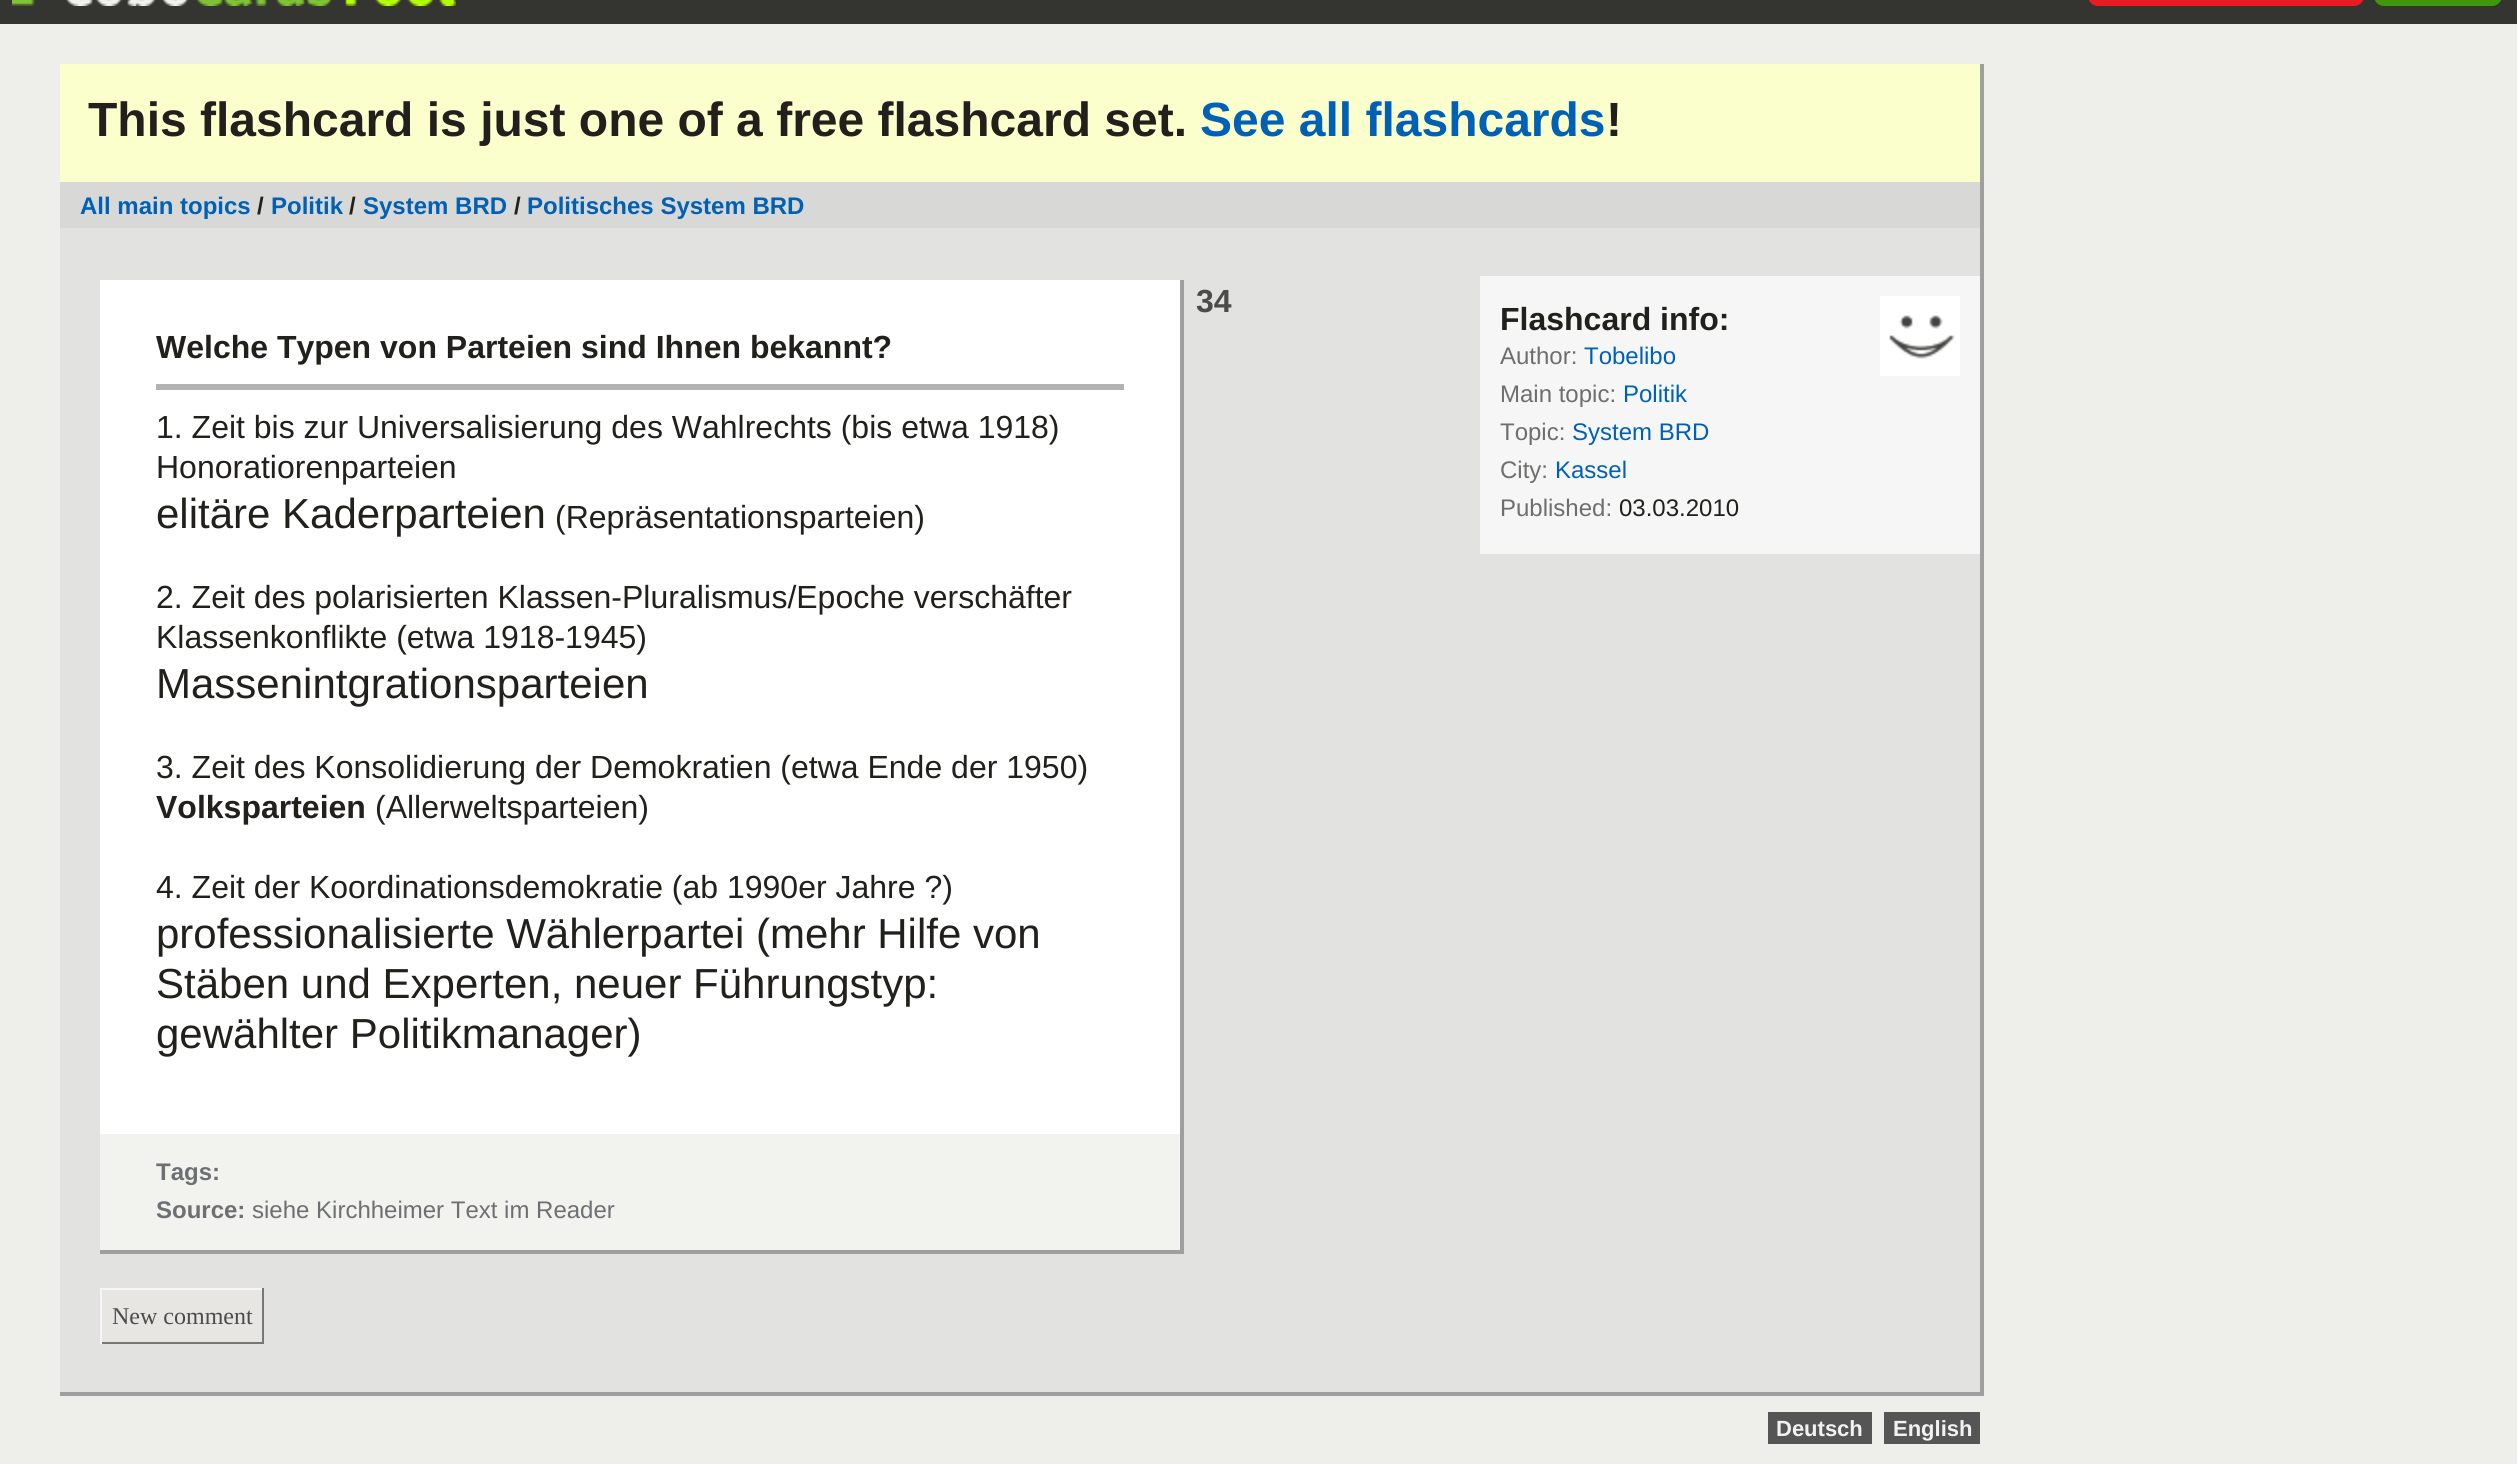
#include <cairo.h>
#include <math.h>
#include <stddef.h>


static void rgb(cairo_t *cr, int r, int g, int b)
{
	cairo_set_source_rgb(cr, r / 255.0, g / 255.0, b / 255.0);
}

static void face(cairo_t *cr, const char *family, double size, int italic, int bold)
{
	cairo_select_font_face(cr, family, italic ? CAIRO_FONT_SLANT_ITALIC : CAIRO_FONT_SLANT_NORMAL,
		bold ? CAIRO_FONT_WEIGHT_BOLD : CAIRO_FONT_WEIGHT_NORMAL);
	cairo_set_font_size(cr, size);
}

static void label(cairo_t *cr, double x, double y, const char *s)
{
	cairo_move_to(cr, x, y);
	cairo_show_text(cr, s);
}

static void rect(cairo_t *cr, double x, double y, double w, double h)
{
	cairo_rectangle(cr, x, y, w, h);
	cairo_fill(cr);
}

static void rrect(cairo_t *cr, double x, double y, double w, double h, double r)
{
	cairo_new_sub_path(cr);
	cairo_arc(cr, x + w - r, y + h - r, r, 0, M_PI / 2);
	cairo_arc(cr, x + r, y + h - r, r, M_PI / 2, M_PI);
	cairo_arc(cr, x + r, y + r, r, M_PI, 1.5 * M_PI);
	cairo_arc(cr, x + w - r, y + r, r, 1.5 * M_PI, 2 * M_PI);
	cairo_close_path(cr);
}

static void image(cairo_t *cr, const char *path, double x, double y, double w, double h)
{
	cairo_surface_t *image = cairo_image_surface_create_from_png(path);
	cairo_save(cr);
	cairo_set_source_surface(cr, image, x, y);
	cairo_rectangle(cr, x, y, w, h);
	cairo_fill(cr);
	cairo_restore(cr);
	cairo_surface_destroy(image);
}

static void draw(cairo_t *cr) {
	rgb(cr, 238, 239, 235);
	cairo_paint(cr);
	rgb(cr, 52, 53, 48);
	rect(cr, 0, 0, 2517, 24);
	image(cr, "image0.png", 12, 0, 444, 6);
	rgb(cr, 233, 28, 36);
	rrect(cr, 2088, -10, 276, 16, 10);
	cairo_fill(cr);
	rgb(cr, 64, 151, 11);
	rrect(cr, 2374, -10, 128, 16, 10);
	cairo_fill(cr);
	rgb(cr, 226, 227, 224);
	rect(cr, 60, 228, 1920, 1164);
	rgb(cr, 159, 159, 159);
	rect(cr, 1980, 64, 4, 1332);
	rect(cr, 60, 1392, 1924, 4);
	rgb(cr, 251, 255, 204);
	rect(cr, 60, 64, 1920, 118);
	face(cr, "Liberation Sans", 48, 0, 1);
	rgb(cr, 33, 32, 28);
	label(cr, 88, 136, "This flashcard is just one of a free flashcard set.");
	rgb(cr, 0, 96, 182);
	label(cr, 1200, 136, "See all flashcards");
	rgb(cr, 33, 32, 28);
	label(cr, 1606, 136, "!");
	rgb(cr, 216, 217, 215);
	rect(cr, 60, 182, 1920, 46);
	face(cr, "Liberation Sans", 24, 0, 1);
	rgb(cr, 0, 96, 182);
	label(cr, 80, 214, "All main topics");
	rgb(cr, 33, 32, 28);
	label(cr, 257, 214, "/");
	rgb(cr, 0, 96, 182);
	label(cr, 271, 214, "Politik");
	rgb(cr, 33, 32, 28);
	label(cr, 349, 214, "/");
	rgb(cr, 0, 96, 182);
	label(cr, 363, 214, "System BRD");
	rgb(cr, 33, 32, 28);
	label(cr, 514, 214, "/");
	rgb(cr, 0, 96, 182);
	label(cr, 527, 214, "Politisches System BRD");
	rgb(cr, 255, 255, 255);
	rect(cr, 100, 280, 1080, 854);
	rgb(cr, 159, 159, 159);
	rect(cr, 1180, 280, 4, 974);
	face(cr, "Liberation Sans", 32, 0, 1);
	rgb(cr, 75, 76, 73);
	label(cr, 1196, 312, "34");
	rgb(cr, 33, 32, 28);
	label(cr, 156, 358, "Welche Typen von Parteien sind Ihnen bekannt?");
	rgb(cr, 179, 179, 179);
	rect(cr, 156, 384, 968, 6);
	face(cr, "Liberation Sans", 32, 0, 0);
	rgb(cr, 33, 32, 28);
	label(cr, 156, 438, "1. Zeit bis zur Universalisierung des Wahlrechts (bis etwa 1918)");
	label(cr, 156, 478, "Honoratiorenparteien");
	face(cr, "Liberation Sans", 42, 0, 0);
	label(cr, 156, 528, "elitäre Kaderparteien");
	face(cr, "Liberation Sans", 32, 0, 0);
	label(cr, 555, 528, "(Repräsentationsparteien)");
	label(cr, 156, 608, "2. Zeit des polarisierten Klassen-Pluralismus/Epoche verschäfter");
	label(cr, 156, 648, "Klassenkonflikte (etwa 1918-1945)");
	face(cr, "Liberation Sans", 42, 0, 0);
	label(cr, 156, 698, "Massenintgrationsparteien");
	face(cr, "Liberation Sans", 32, 0, 0);
	label(cr, 156, 778, "3. Zeit des Konsolidierung der Demokratien (etwa Ende der 1950)");
	face(cr, "Liberation Sans", 32, 0, 1);
	label(cr, 156, 818, "Volksparteien");
	face(cr, "Liberation Sans", 32, 0, 0);
	label(cr, 375, 818, "(Allerweltsparteien)");
	label(cr, 156, 898, "4. Zeit der Koordinationsdemokratie (ab 1990er Jahre ?)");
	face(cr, "Liberation Sans", 42, 0, 0);
	label(cr, 156, 948, "professionalisierte Wählerpartei (mehr Hilfe von");
	label(cr, 156, 998, "Stäben und Experten, neuer Führungstyp:");
	label(cr, 156, 1048, "gewählter Politikmanager)");
	rgb(cr, 242, 243, 239);
	rect(cr, 100, 1134, 1080, 116);
	rgb(cr, 159, 159, 159);
	rect(cr, 100, 1250, 1084, 4);
	face(cr, "Liberation Sans", 24, 0, 1);
	rgb(cr, 110, 111, 114);
	label(cr, 156, 1180, "Tags:");
	label(cr, 156, 1218, "Source:");
	face(cr, "Liberation Sans", 24, 0, 0);
	label(cr, 252, 1218, "siehe Kirchheimer Text im Reader");
	rgb(cr, 231, 230, 227);
	rect(cr, 102, 1290, 160, 52);
	rgb(cr, 246, 246, 246);
	rect(cr, 100, 1288, 164, 2);
	rgb(cr, 119, 120, 118);
	rect(cr, 262, 1288, 2, 56);
	rect(cr, 100, 1342, 164, 2);
	rgb(cr, 246, 246, 246);
	rect(cr, 100, 1288, 2, 56);
	face(cr, "Liberation Serif", 24, 0, 0);
	rgb(cr, 75, 76, 73);
	label(cr, 112, 1324, "New comment");
	rgb(cr, 246, 246, 246);
	rect(cr, 1480, 276, 500, 278);
	face(cr, "Liberation Sans", 32, 0, 1);
	rgb(cr, 33, 32, 28);
	label(cr, 1500, 330, "Flashcard info:");
	image(cr, "image1.png", 1880, 296, 80, 80);
	face(cr, "Liberation Sans", 24, 0, 0);
	rgb(cr, 109, 111, 108);
	label(cr, 1500, 364, "Author:");
	rgb(cr, 0, 96, 182);
	label(cr, 1584, 364, "Tobelibo");
	rgb(cr, 109, 111, 108);
	label(cr, 1500, 402, "Main topic:");
	rgb(cr, 0, 96, 182);
	label(cr, 1623, 402, "Politik");
	rgb(cr, 109, 111, 108);
	label(cr, 1500, 440, "Topic:");
	rgb(cr, 0, 96, 182);
	label(cr, 1572, 440, "System BRD");
	rgb(cr, 109, 111, 108);
	label(cr, 1500, 478, "City:");
	rgb(cr, 0, 96, 182);
	label(cr, 1555, 478, "Kassel");
	rgb(cr, 109, 111, 108);
	label(cr, 1500, 516, "Published:");
	rgb(cr, 33, 32, 28);
	label(cr, 1619, 516, "03.03.2010");
	rgb(cr, 85, 85, 85);
	rect(cr, 1768, 1412, 104, 32);
	face(cr, "Liberation Sans", 22, 0, 1);
	rgb(cr, 242, 242, 242);
	label(cr, 1776, 1436, "Deutsch");
	rgb(cr, 85, 85, 85);
	rect(cr, 1884, 1412, 96, 32);
	rgb(cr, 242, 242, 242);
	label(cr, 1893, 1436, "English");
}

int main(void) {
	cairo_surface_t *surface = cairo_image_surface_create(CAIRO_FORMAT_RGB24, 2517, 1464);
	cairo_t *cr = cairo_create(surface);
	cairo_font_options_t *options = cairo_font_options_create();
	cairo_font_options_set_hint_metrics(options, CAIRO_HINT_METRICS_OFF);
	cairo_font_options_set_hint_style(options, CAIRO_HINT_STYLE_NONE);
	cairo_set_font_options(cr, options);
	cairo_set_miter_limit(cr, 4);
	draw(cr);
	cairo_surface_write_to_png(surface, "render.png");
	cairo_font_options_destroy(options);
	cairo_destroy(cr);
	cairo_surface_destroy(surface);
	return 0;
}
